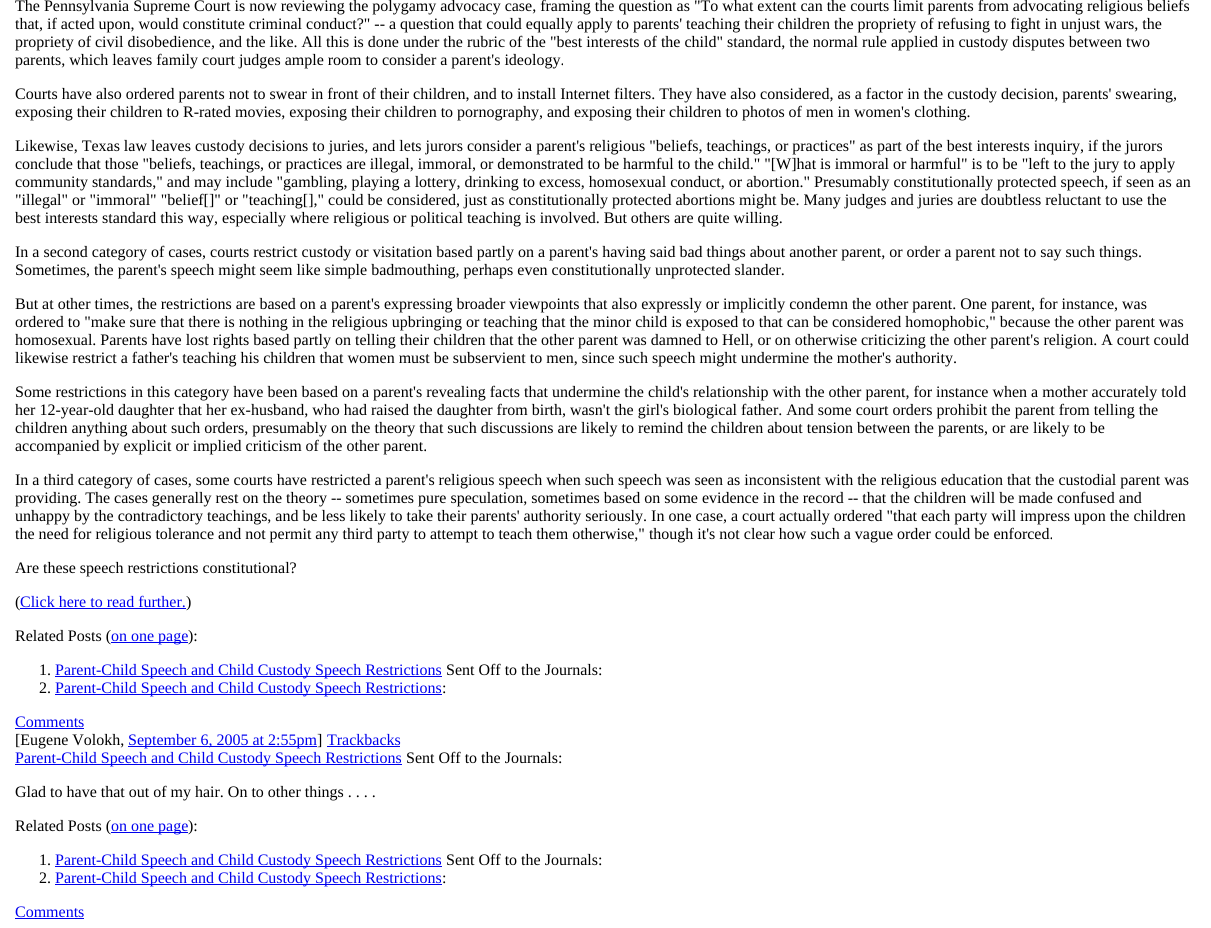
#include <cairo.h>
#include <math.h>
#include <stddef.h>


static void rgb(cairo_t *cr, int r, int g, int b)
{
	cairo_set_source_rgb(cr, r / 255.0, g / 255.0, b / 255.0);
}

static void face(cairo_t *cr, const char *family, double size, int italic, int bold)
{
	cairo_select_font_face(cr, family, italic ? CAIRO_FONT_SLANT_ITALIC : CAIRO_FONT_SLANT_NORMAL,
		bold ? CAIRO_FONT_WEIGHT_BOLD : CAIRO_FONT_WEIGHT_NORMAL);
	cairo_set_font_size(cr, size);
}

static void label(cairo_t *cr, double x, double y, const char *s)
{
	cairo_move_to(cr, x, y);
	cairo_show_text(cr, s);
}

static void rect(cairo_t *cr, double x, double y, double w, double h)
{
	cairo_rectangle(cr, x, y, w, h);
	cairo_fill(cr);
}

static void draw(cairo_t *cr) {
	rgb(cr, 255, 255, 255);
	cairo_paint(cr);
	face(cr, "Liberation Serif", 16, 0, 0);
	rgb(cr, 0, 0, 0);
	label(cr, 15, 11, "The Pennsylvania Supreme Court is now reviewing the polygamy advocacy case, framing the question as \"To what extent can the courts limit parents from advocating religious beliefs");
	label(cr, 15, 29, "that, if acted upon, would constitute criminal conduct?\" -- a question that could equally apply to parents' teaching their children the propriety of refusing to fight in unjust wars, the");
	label(cr, 15, 47, "propriety of civil disobedience, and the like. All this is done under the rubric of the \"best interests of the child\" standard, the normal rule applied in custody disputes between two");
	label(cr, 15, 65, "parents, which leaves family court judges ample room to consider a parent's ideology.");
	label(cr, 15, 99, "Courts have also ordered parents not to swear in front of their children, and to install Internet filters. They have also considered, as a factor in the custody decision, parents' swearing,");
	label(cr, 15, 117, "exposing their children to R-rated movies, exposing their children to pornography, and exposing their children to photos of men in women's clothing.");
	label(cr, 15, 151, "Likewise, Texas law leaves custody decisions to juries, and lets jurors consider a parent's religious \"beliefs, teachings, or practices\" as part of the best interests inquiry, if the jurors");
	label(cr, 15, 169, "conclude that those \"beliefs, teachings, or practices are illegal, immoral, or demonstrated to be harmful to the child.\" \"[W]hat is immoral or harmful\" is to be \"left to the jury to apply");
	label(cr, 15, 187, "community standards,\" and may include \"gambling, playing a lottery, drinking to excess, homosexual conduct, or abortion.\" Presumably constitutionally protected speech, if seen as an");
	label(cr, 15, 205, "\"illegal\" or \"immoral\" \"belief[]\" or \"teaching[],\" could be considered, just as constitutionally protected abortions might be. Many judges and juries are doubtless reluctant to use the");
	label(cr, 15, 223, "best interests standard this way, especially where religious or political teaching is involved. But others are quite willing.");
	label(cr, 15, 257, "In a second category of cases, courts restrict custody or visitation based partly on a parent's having said bad things about another parent, or order a parent not to say such things.");
	label(cr, 15, 275, "Sometimes, the parent's speech might seem like simple badmouthing, perhaps even constitutionally unprotected slander.");
	label(cr, 15, 309, "But at other times, the restrictions are based on a parent's expressing broader viewpoints that also expressly or implicitly condemn the other parent. One parent, for instance, was");
	label(cr, 15, 327, "ordered to \"make sure that there is nothing in the religious upbringing or teaching that the minor child is exposed to that can be considered homophobic,\" because the other parent was");
	label(cr, 15, 345, "homosexual. Parents have lost rights based partly on telling their children that the other parent was damned to Hell, or on otherwise criticizing the other parent's religion. A court could");
	label(cr, 15, 363, "likewise restrict a father's teaching his children that women must be subservient to men, since such speech might undermine the mother's authority.");
	label(cr, 15, 397, "Some restrictions in this category have been based on a parent's revealing facts that undermine the child's relationship with the other parent, for instance when a mother accurately told");
	label(cr, 15, 415, "her 12-year-old daughter that her ex-husband, who had raised the daughter from birth, wasn't the girl's biological father. And some court orders prohibit the parent from telling the");
	label(cr, 15, 433, "children anything about such orders, presumably on the theory that such discussions are likely to remind the children about tension between the parents, or are likely to be");
	label(cr, 15, 451, "accompanied by explicit or implied criticism of the other parent.");
	label(cr, 15, 485, "In a third category of cases, some courts have restricted a parent's religious speech when such speech was seen as inconsistent with the religious education that the custodial parent was");
	label(cr, 15, 503, "providing. The cases generally rest on the theory -- sometimes pure speculation, sometimes based on some evidence in the record -- that the children will be made confused and");
	label(cr, 15, 521, "unhappy by the contradictory teachings, and be less likely to take their parents' authority seriously. In one case, a court actually ordered \"that each party will impress upon the children");
	label(cr, 15, 539, "the need for religious tolerance and not permit any third party to attempt to teach them otherwise,\" though it's not clear how such a vague order could be enforced.");
	label(cr, 15, 573, "Are these speech restrictions constitutional?");
	label(cr, 15, 607, "(");
	rgb(cr, 0, 0, 238);
	label(cr, 20, 607, "Click here to read further.");
	rect(cr, 20, 608, 166, 1);
	rgb(cr, 0, 0, 0);
	label(cr, 186, 607, ")");
	label(cr, 15, 641, "Related Posts (");
	rgb(cr, 0, 0, 238);
	rect(cr, 111, 642, 77, 1);
	label(cr, 111, 641, "on one page");
	rgb(cr, 0, 0, 0);
	label(cr, 188, 641, "):");
	label(cr, 39, 675, "1.");
	rgb(cr, 0, 0, 238);
	rect(cr, 55, 676, 387, 1);
	label(cr, 55, 675, "Parent-Child Speech and Child Custody Speech Restrictions");
	rgb(cr, 0, 0, 0);
	label(cr, 446, 675, "Sent Off to the Journals:");
	label(cr, 39, 693, "2.");
	rgb(cr, 0, 0, 238);
	rect(cr, 55, 694, 387, 1);
	label(cr, 55, 693, "Parent-Child Speech and Child Custody Speech Restrictions");
	rgb(cr, 0, 0, 0);
	label(cr, 442, 693, ":");
	rgb(cr, 0, 0, 238);
	label(cr, 15, 727, "Comments");
	rect(cr, 15, 728, 69, 1);
	rgb(cr, 0, 0, 0);
	label(cr, 15, 745, "[Eugene Volokh,");
	rgb(cr, 0, 0, 238);
	rect(cr, 128, 746, 189, 1);
	label(cr, 128, 745, "September 6, 2005 at 2:55pm");
	rgb(cr, 0, 0, 0);
	label(cr, 317, 745, "]");
	rgb(cr, 0, 0, 238);
	label(cr, 327, 745, "Trackbacks");
	rect(cr, 327, 746, 73, 1);
	rect(cr, 15, 764, 387, 1);
	label(cr, 15, 763, "Parent-Child Speech and Child Custody Speech Restrictions");
	rgb(cr, 0, 0, 0);
	label(cr, 406, 763, "Sent Off to the Journals:");
	label(cr, 15, 797, "Glad to have that out of my hair. On to other things . . . .");
	label(cr, 15, 831, "Related Posts (");
	rgb(cr, 0, 0, 238);
	rect(cr, 111, 832, 77, 1);
	label(cr, 111, 831, "on one page");
	rgb(cr, 0, 0, 0);
	label(cr, 188, 831, "):");
	label(cr, 39, 865, "1.");
	rgb(cr, 0, 0, 238);
	rect(cr, 55, 866, 387, 1);
	label(cr, 55, 865, "Parent-Child Speech and Child Custody Speech Restrictions");
	rgb(cr, 0, 0, 0);
	label(cr, 446, 865, "Sent Off to the Journals:");
	label(cr, 39, 883, "2.");
	rgb(cr, 0, 0, 238);
	rect(cr, 55, 884, 387, 1);
	label(cr, 55, 883, "Parent-Child Speech and Child Custody Speech Restrictions");
	rgb(cr, 0, 0, 0);
	label(cr, 442, 883, ":");
	rgb(cr, 0, 0, 238);
	label(cr, 15, 917, "Comments");
	rect(cr, 15, 918, 69, 1);
}

int main(void) {
	cairo_surface_t *surface = cairo_image_surface_create(CAIRO_FORMAT_RGB24, 1211, 928);
	cairo_t *cr = cairo_create(surface);
	cairo_font_options_t *options = cairo_font_options_create();
	cairo_font_options_set_hint_metrics(options, CAIRO_HINT_METRICS_OFF);
	cairo_font_options_set_hint_style(options, CAIRO_HINT_STYLE_NONE);
	cairo_set_font_options(cr, options);
	cairo_set_miter_limit(cr, 4);
	draw(cr);
	cairo_surface_write_to_png(surface, "render.png");
	cairo_font_options_destroy(options);
	cairo_destroy(cr);
	cairo_surface_destroy(surface);
	return 0;
}
